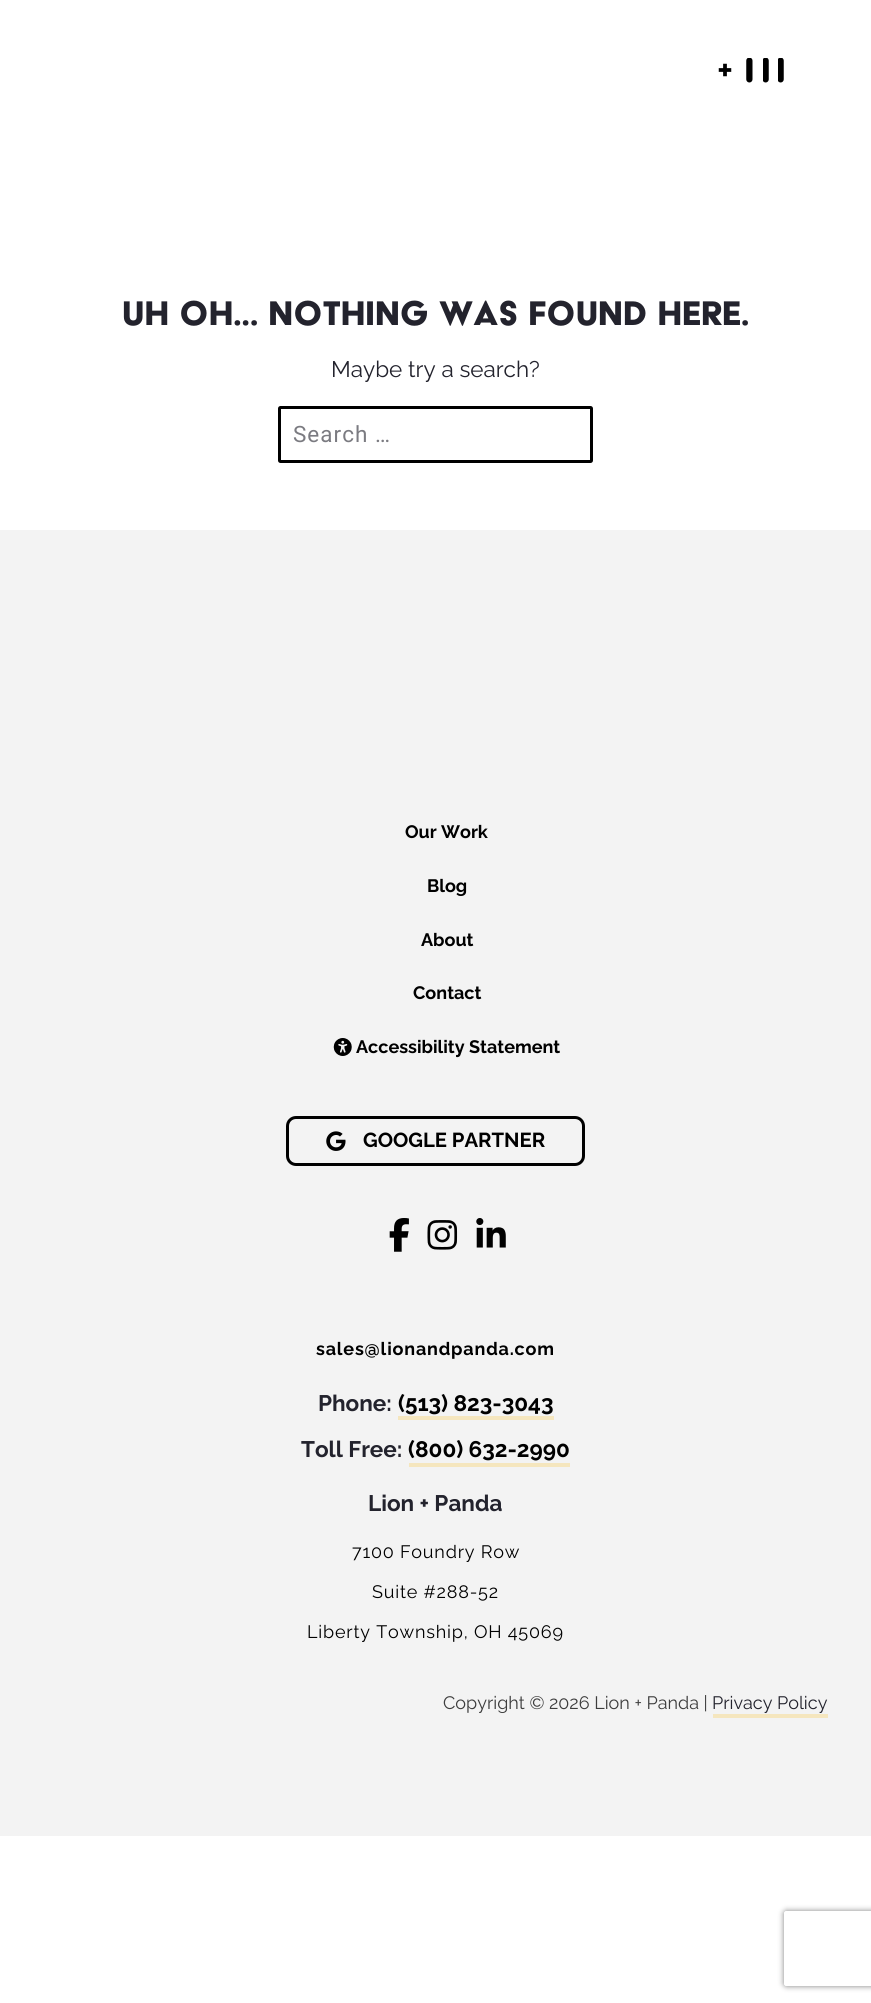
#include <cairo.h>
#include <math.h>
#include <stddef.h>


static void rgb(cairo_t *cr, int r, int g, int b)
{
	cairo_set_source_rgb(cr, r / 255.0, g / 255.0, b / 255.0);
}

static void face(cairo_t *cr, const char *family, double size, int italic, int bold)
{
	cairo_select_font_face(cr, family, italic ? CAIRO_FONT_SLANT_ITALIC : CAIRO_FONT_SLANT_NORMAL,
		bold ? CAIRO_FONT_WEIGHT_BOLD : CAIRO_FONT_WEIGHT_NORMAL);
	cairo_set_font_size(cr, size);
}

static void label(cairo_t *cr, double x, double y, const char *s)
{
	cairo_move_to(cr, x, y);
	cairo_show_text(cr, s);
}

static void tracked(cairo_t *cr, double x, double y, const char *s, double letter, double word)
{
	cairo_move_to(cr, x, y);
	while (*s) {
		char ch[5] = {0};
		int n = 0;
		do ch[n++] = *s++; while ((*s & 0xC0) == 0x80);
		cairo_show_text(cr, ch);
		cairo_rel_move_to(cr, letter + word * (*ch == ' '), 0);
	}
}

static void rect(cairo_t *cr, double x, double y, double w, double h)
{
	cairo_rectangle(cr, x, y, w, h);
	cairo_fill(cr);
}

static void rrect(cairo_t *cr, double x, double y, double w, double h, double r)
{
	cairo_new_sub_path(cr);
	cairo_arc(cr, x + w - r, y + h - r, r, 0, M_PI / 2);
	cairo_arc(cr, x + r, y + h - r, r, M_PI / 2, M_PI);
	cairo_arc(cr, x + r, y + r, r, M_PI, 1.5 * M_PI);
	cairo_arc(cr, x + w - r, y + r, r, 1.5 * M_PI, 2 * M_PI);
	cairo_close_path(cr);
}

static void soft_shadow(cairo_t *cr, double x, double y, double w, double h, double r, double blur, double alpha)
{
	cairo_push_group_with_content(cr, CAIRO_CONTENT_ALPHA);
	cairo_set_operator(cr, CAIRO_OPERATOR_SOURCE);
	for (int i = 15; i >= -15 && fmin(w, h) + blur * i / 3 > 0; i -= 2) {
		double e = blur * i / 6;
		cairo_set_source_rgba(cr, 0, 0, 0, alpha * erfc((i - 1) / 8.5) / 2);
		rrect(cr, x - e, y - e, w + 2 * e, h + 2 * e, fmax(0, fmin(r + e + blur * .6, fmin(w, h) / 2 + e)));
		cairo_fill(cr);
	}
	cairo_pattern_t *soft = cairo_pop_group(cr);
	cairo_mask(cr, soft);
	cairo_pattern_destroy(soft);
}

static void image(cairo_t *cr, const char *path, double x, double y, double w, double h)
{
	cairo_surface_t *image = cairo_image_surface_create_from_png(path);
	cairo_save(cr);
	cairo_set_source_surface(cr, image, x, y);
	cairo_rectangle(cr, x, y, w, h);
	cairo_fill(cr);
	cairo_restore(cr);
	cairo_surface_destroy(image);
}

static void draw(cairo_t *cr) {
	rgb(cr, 255, 255, 255);
	cairo_paint(cr);
	image(cr, "image0.png", 718, 63, 14, 14);
	image(cr, "image1.png", 746, 58, 7, 25);
	image(cr, "image2.png", 763, 58, 6, 25);
	image(cr, "image2.png", 778, 58, 6, 25);
	face(cr, "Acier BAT", 39.4, 0, 0);
	rgb(cr, 35, 35, 45);
	label(cr, 122, 325, "Uh Oh... Nothing was found here.");
	face(cr, "Raleway", 22.5, 0, 0);
	label(cr, 331, 377, "Maybe try a search?");
	rrect(cr, 279.5, 407.5, 312, 54, 1);
	rgb(cr, 0, 0, 0);
	cairo_set_line_width(cr, 3);
	cairo_stroke(cr);
	face(cr, "Roboto", 22.5, 0, 0);
	rgb(cr, 123, 123, 129);
	tracked(cr, 293, 442, "Search …", 1, 0);
	rgb(cr, 243, 243, 243);
	rect(cr, 0, 530, 871, 1306);
	face(cr, "Raleway", 18, 0, 1);
	rgb(cr, 0, 0, 0);
	label(cr, 405, 838, "Our Work");
	label(cr, 427, 892, "Blog");
	label(cr, 421, 946, "About");
	label(cr, 413, 999, "Contact");
	image(cr, "image3.png", 333, 1038, 19, 18);
	label(cr, 356, 1053, "Accessibility Statement");
	rrect(cr, 287.5, 1117.5, 296, 47, 8.5);
	cairo_stroke(cr);
	image(cr, "image4.png", 326, 1131, 20, 20);
	face(cr, "Raleway", 20.25, 0, 1);
	label(cr, 363, 1147, "GOOGLE PARTNER");
	image(cr, "image5.png", 389, 1218, 20, 34);
	image(cr, "image6.png", 427, 1220, 31, 30);
	image(cr, "image7.png", 476, 1218, 30, 30);
	face(cr, "Raleway", 18, 0, 1);
	tracked(cr, 316, 1355, "sales@lionandpanda.com", 0.8, 0);
	face(cr, "Raleway", 22.5, 0, 1);
	rgb(cr, 35, 35, 45);
	label(cr, 318, 1411, "Phone:");
	rgb(cr, 0, 0, 0);
	label(cr, 398, 1411, "(513) 823-3043");
	rgb(cr, 245, 230, 190);
	rect(cr, 398, 1416, 156, 4);
	rgb(cr, 35, 35, 45);
	label(cr, 301, 1457, "Toll Free:");
	rgb(cr, 0, 0, 0);
	label(cr, 408, 1457, "(800) 632-2990");
	rgb(cr, 245, 230, 190);
	rect(cr, 409, 1463, 161, 4);
	rgb(cr, 35, 35, 45);
	label(cr, 368, 1511, "Lion + Panda");
	face(cr, "Raleway", 18, 0, 0);
	rgb(cr, 0, 0, 0);
	tracked(cr, 352, 1558, "7100 Foundry Row", 0.8, 0);
	tracked(cr, 372, 1598, "Suite #288-52", 0.8, 0);
	tracked(cr, 307, 1638, "Liberty Township, OH 45069", 0.8, 0);
	rgb(cr, 61, 61, 61);
	label(cr, 443, 1709, "Copyright © 2026 Lion + Panda |");
	rgb(cr, 35, 35, 45);
	label(cr, 712, 1709, "Privacy Policy");
	rgb(cr, 245, 230, 190);
	rect(cr, 713, 1714, 115, 4);
	cairo_save(cr);
	cairo_set_fill_rule(cr, CAIRO_FILL_RULE_EVEN_ODD);
	cairo_new_path(cr);
	cairo_move_to(cr, 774, 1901);
	cairo_line_to(cr, 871, 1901);
	cairo_line_to(cr, 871, 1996);
	cairo_line_to(cr, 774, 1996);
	cairo_close_path(cr);
	cairo_move_to(cr, 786.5, 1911);
	cairo_line_to(cr, 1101.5, 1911);
	cairo_curve_to(cr, 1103, 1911, 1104, 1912, 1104, 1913.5);
	cairo_line_to(cr, 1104, 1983.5);
	cairo_curve_to(cr, 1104, 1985, 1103, 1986, 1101.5, 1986);
	cairo_line_to(cr, 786.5, 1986);
	cairo_curve_to(cr, 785, 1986, 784, 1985, 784, 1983.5);
	cairo_line_to(cr, 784, 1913.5);
	cairo_curve_to(cr, 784, 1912, 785, 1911, 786.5, 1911);
	cairo_close_path(cr);
	cairo_clip(cr);
	rgb(cr, 128, 128, 128);
	soft_shadow(cr, 784, 1911, 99, 75, 2.5, 3, 1);
	cairo_restore(cr);
}

int main(void) {
	cairo_surface_t *surface = cairo_image_surface_create(CAIRO_FORMAT_RGB24, 871, 2003);
	cairo_t *cr = cairo_create(surface);
	cairo_font_options_t *options = cairo_font_options_create();
	cairo_font_options_set_hint_metrics(options, CAIRO_HINT_METRICS_OFF);
	cairo_font_options_set_hint_style(options, CAIRO_HINT_STYLE_NONE);
	cairo_set_font_options(cr, options);
	cairo_set_miter_limit(cr, 4);
	draw(cr);
	cairo_surface_write_to_png(surface, "render.png");
	cairo_font_options_destroy(options);
	cairo_destroy(cr);
	cairo_surface_destroy(surface);
	return 0;
}
